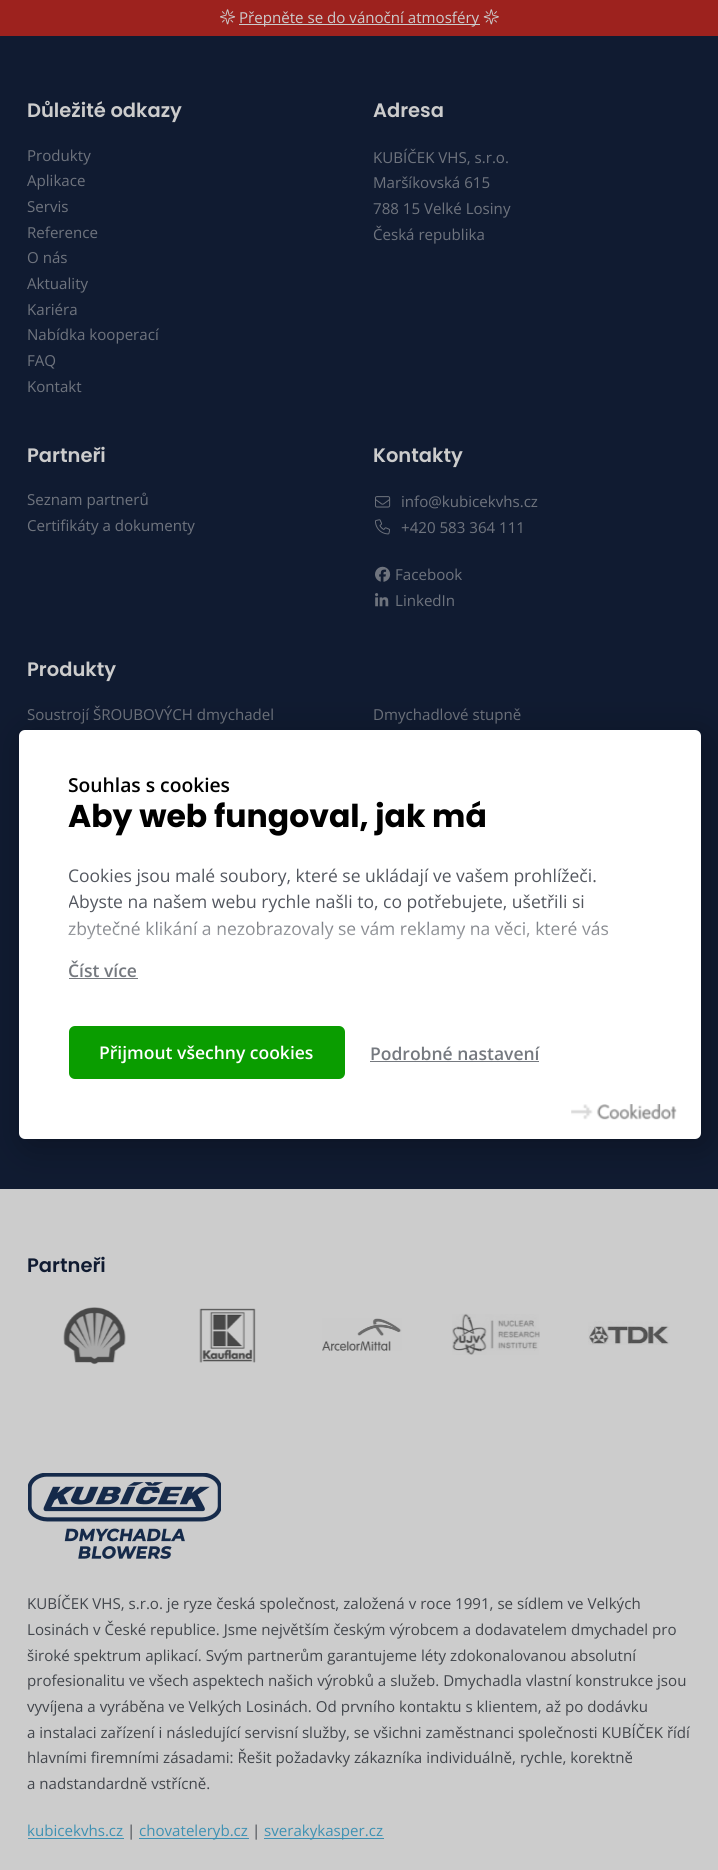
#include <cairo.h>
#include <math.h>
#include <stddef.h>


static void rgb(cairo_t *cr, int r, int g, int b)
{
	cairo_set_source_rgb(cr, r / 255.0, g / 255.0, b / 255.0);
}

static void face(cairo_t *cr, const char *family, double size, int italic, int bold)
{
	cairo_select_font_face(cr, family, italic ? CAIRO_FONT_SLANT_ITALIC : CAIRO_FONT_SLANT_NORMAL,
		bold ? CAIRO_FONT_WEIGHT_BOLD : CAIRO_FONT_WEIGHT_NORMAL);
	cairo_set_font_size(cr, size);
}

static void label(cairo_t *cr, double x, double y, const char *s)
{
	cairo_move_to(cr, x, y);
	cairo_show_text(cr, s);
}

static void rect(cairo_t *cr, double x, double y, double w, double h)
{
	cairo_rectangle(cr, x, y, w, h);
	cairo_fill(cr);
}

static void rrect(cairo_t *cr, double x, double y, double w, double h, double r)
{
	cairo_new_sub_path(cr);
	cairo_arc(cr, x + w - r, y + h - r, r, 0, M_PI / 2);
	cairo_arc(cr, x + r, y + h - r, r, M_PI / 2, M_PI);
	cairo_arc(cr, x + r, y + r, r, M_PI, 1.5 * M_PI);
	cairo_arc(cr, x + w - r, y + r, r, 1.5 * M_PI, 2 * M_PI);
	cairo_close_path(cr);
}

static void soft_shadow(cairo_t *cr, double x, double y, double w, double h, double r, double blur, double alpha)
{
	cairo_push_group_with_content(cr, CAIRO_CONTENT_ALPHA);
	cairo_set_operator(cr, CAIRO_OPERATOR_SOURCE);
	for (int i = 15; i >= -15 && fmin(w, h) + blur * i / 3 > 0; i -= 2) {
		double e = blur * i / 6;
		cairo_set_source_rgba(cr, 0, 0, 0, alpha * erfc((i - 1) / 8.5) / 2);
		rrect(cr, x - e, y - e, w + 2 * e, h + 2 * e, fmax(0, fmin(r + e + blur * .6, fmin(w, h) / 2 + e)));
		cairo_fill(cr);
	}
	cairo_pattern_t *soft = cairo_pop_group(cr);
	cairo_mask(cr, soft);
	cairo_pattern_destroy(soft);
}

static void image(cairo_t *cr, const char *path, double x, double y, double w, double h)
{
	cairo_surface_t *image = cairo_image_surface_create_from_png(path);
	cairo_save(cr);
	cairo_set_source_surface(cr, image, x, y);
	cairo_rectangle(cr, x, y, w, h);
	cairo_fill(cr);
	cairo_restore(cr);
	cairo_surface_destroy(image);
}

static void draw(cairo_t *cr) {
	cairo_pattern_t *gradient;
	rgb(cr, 204, 204, 204);
	cairo_paint(cr);
	rgb(cr, 157, 34, 30);
	rect(cr, 0, 0, 718, 36);
	image(cr, "image0.png", 220, 9, 16, 16);
	rgb(cr, 204, 204, 204);
	rect(cr, 239, 24, 241, 1);
	face(cr, "Open Sans", 15.1, 0, 0);
	label(cr, 239, 23, "Přepněte se do vánoční atmosféry");
	image(cr, "image1.png", 483, 9, 16, 16);
	rgb(cr, 16, 27, 49);
	rect(cr, 0, 36, 718, 1153);
	face(cr, "Poppins SemiBold", 19.5, 0, 0);
	rgb(cr, 204, 204, 204);
	label(cr, 27, 117, "Důležité odkazy");
	face(cr, "Open Sans", 15.1, 0, 0);
	rgb(cr, 111, 116, 126);
	label(cr, 27, 161, "Produkty");
	label(cr, 27, 186, "Aplikace");
	label(cr, 27, 212, "Servis");
	label(cr, 27, 238, "Reference");
	label(cr, 27, 263, "O nás");
	label(cr, 27, 289, "Aktuality");
	label(cr, 27, 315, "Kariéra");
	label(cr, 27, 340, "Nabídka kooperací");
	label(cr, 27, 366, "FAQ");
	label(cr, 27, 392, "Kontakt");
	face(cr, "Poppins SemiBold", 19.5, 0, 0);
	rgb(cr, 204, 204, 204);
	label(cr, 373, 117, "Adresa");
	face(cr, "Open Sans", 15.1, 0, 0);
	rgb(cr, 111, 116, 126);
	label(cr, 373, 163, "KUBÍČEK VHS, s.r.o.");
	label(cr, 373, 188, "Maršíkovská 615");
	label(cr, 373, 214, "788 15 Velké Losiny");
	label(cr, 373, 240, "Česká republika");
	face(cr, "Poppins SemiBold", 19.5, 0, 0);
	rgb(cr, 204, 204, 204);
	label(cr, 27, 462, "Partneři");
	face(cr, "Open Sans", 15.1, 0, 0);
	rgb(cr, 111, 116, 126);
	label(cr, 27, 505, "Seznam partnerů");
	label(cr, 27, 531, "Certifikáty a dokumenty");
	face(cr, "Poppins SemiBold", 19.5, 0, 0);
	rgb(cr, 204, 204, 204);
	label(cr, 373, 462, "Kontakty");
	image(cr, "image2.png", 375, 496, 16, 12);
	face(cr, "Open Sans", 15.1, 0, 0);
	rgb(cr, 111, 116, 126);
	label(cr, 401, 507, "info@kubicekvhs.cz");
	image(cr, "image3.png", 375, 519, 15, 16);
	label(cr, 401, 533, "+420 583 364 111");
	image(cr, "image4.png", 375, 566, 16, 16);
	label(cr, 395, 580, "Facebook");
	image(cr, "image5.png", 375, 593, 14, 14);
	label(cr, 395, 606, "LinkedIn");
	face(cr, "Poppins SemiBold", 19.5, 0, 0);
	rgb(cr, 204, 204, 204);
	label(cr, 27, 676, "Produkty");
	face(cr, "Open Sans", 15.1, 0, 0);
	rgb(cr, 111, 116, 126);
	label(cr, 27, 720, "Soustrojí ŠROUBOVÝCH dmychadel");
	label(cr, 373, 720, "Dmychadlové stupně");
	face(cr, "Poppins SemiBold", 19.5, 0, 0);
	rgb(cr, 16, 27, 49);
	label(cr, 27, 1272, "Partneři");
	image(cr, "image6.png", 63, 1307, 63, 58);
	image(cr, "image7.png", 199, 1308, 57, 55);
	image(cr, "image8.png", 322, 1318, 80, 33);
	image(cr, "image9.png", 452, 1313, 88, 42);
	image(cr, "image10.png", 588, 1321, 82, 24);
	image(cr, "image11.png", 28, 1473, 193, 86);
	face(cr, "Open Sans", 15.1, 0, 0);
	rgb(cr, 66, 70, 76);
	label(cr, 27, 1609, "KUBÍČEK VHS, s.r.o. je ryze česká společnost, založená v roce 1991, se sídlem ve Velkých");
	label(cr, 27, 1635, "Losinách v České republice. Jsme největším českým výrobcem a dodavatelem dmychadel pro");
	label(cr, 27, 1661, "široké spektrum aplikací. Svým partnerům garantujeme léty zdokonalovanou absolutní");
	label(cr, 27, 1686, "profesionalitu ve všech aspektech našich výrobků a služeb. Dmychadla vlastní konstrukce jsou");
	label(cr, 27, 1712, "vyvíjena a vyráběna ve Velkých Losinách. Od prvního kontaktu s klientem, až po dodávku");
	label(cr, 27, 1738, "a instalaci zařízení i následující servisní služby, se všichni zaměstnanci společnosti KUBÍČEK řídí");
	label(cr, 27, 1763, "hlavními firemními zásadami: Řešit požadavky zákazníka individuálně, rychle, korektně");
	label(cr, 27, 1789, "a nadstandardně vstřícně.");
	rgb(cr, 62, 145, 179);
	label(cr, 27, 1836, "kubicekvhs.cz");
	rect(cr, 28, 1838, 96, 1);
	rgb(cr, 66, 70, 76);
	label(cr, 127, 1836, "|");
	rgb(cr, 62, 145, 179);
	rect(cr, 139, 1838, 110, 1);
	label(cr, 139, 1836, "chovateleryb.cz");
	rgb(cr, 66, 70, 76);
	label(cr, 252, 1836, "|");
	rgb(cr, 62, 145, 179);
	rect(cr, 264, 1838, 120, 1);
	label(cr, 264, 1836, "sverakykasper.cz");
	rgb(cr, 0, 0, 0);
	soft_shadow(cr, 25, 736, 683, 409, 6, 19, 0.3);
	rgb(cr, 255, 255, 255);
	rrect(cr, 19, 730, 682, 409, 6);
	cairo_fill(cr);
	face(cr, "Open Sans SemiBold", 19.25, 0, 0);
	rgb(cr, 0, 0, 0);
	label(cr, 68, 792, "Souhlas s cookies");
	face(cr, "Poppins", 31.5, 0, 1);
	label(cr, 68, 827, "Aby web fungoval, jak má");
	face(cr, "Open Sans", 17.5, 0, 0);
	rgb(cr, 83, 87, 95);
	label(cr, 68, 882, "Cookies jsou malé soubory, které se ukládají ve vašem prohlížeči.");
	cairo_save(cr);
	cairo_rectangle(cr, 69, 770, 582, 213);
	cairo_clip(cr);
	label(cr, 68, 908, "Abyste na našem webu rychle našli to, co potřebujete, ušetřili si");
	cairo_restore(cr);
	label(cr, 68, 935, "zbytečné klikání a nezobrazovaly se vám reklamy na věci, které vás");
	gradient = cairo_pattern_create_linear(360, 908, 360, 983);
	cairo_pattern_add_color_stop_rgba(gradient, 0, 1, 1, 1, 0);
	cairo_pattern_add_color_stop_rgba(gradient, 0.9, 1, 1, 1, 1);
	cairo_set_source(cr, gradient);
	cairo_pattern_destroy(gradient);
	rect(cr, 69, 909, 539, 31);
	rgb(cr, 117, 121, 127);
	rect(cr, 69, 978, 69, 1);
	face(cr, "Open Sans SemiBold", 17.5, 0, 0);
	label(cr, 68, 977, "Číst více");
	rgb(cr, 10, 157, 0);
	rrect(cr, 69, 1026, 276, 53, 6);
	cairo_fill(cr);
	rgb(cr, 255, 255, 255);
	label(cr, 99, 1059, "Přijmout všechny cookies");
	rgb(cr, 117, 121, 127);
	label(cr, 370, 1060, "Podrobné nastavení");
	rect(cr, 370, 1061, 169, 1);
	image(cr, "image12.png", 571, 1104, 106, 16);
}

int main(void) {
	cairo_surface_t *surface = cairo_image_surface_create(CAIRO_FORMAT_RGB24, 718, 1870);
	cairo_t *cr = cairo_create(surface);
	cairo_font_options_t *options = cairo_font_options_create();
	cairo_font_options_set_hint_metrics(options, CAIRO_HINT_METRICS_OFF);
	cairo_font_options_set_hint_style(options, CAIRO_HINT_STYLE_NONE);
	cairo_set_font_options(cr, options);
	cairo_set_miter_limit(cr, 4);
	draw(cr);
	cairo_surface_write_to_png(surface, "render.png");
	cairo_font_options_destroy(options);
	cairo_destroy(cr);
	cairo_surface_destroy(surface);
	return 0;
}
